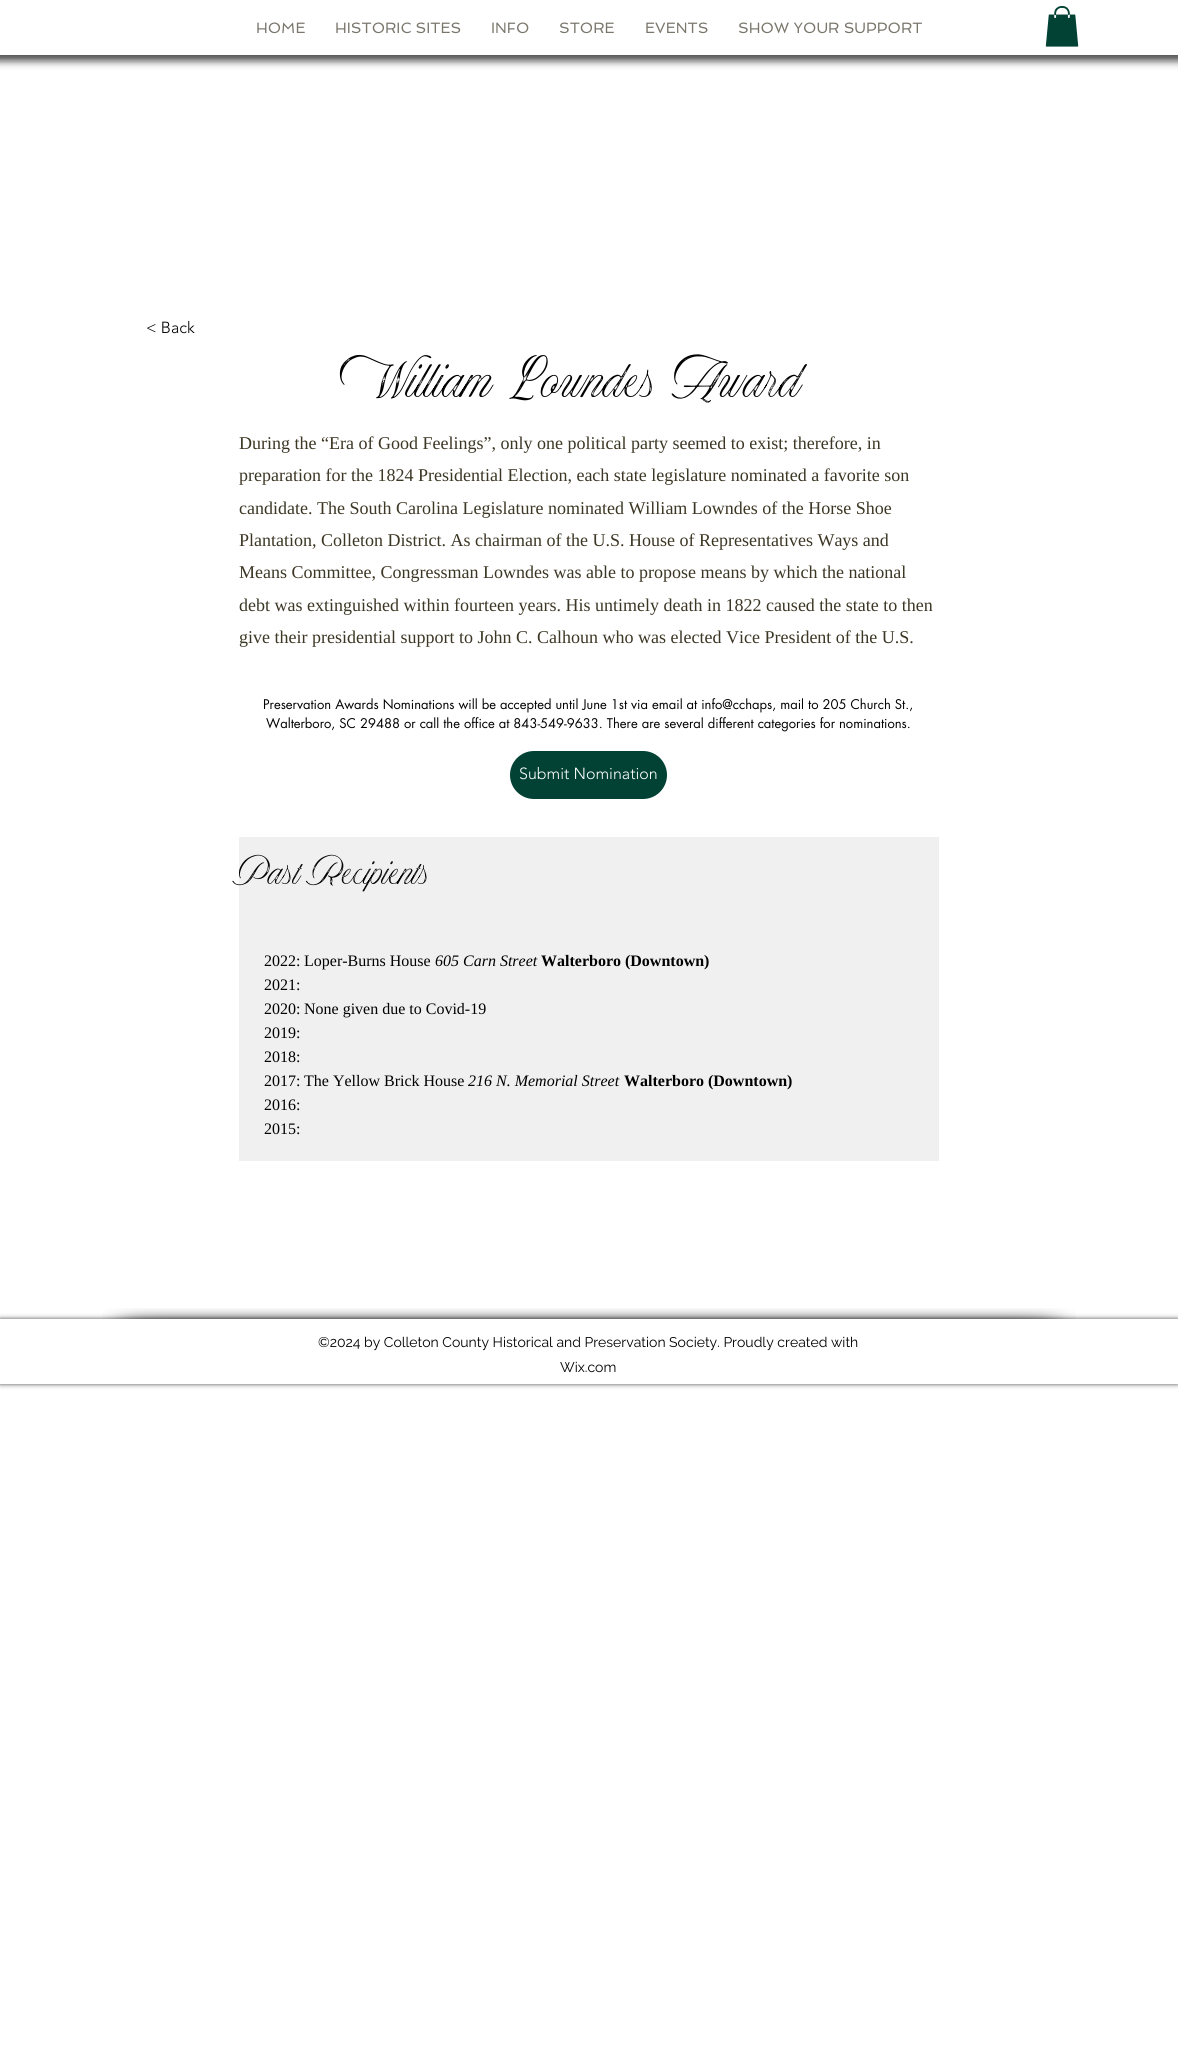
#include <cairo.h>
#include <math.h>
#include <stddef.h>


static void rgb(cairo_t *cr, int r, int g, int b)
{
	cairo_set_source_rgb(cr, r / 255.0, g / 255.0, b / 255.0);
}

static void face(cairo_t *cr, const char *family, double size, int italic, int bold)
{
	cairo_select_font_face(cr, family, italic ? CAIRO_FONT_SLANT_ITALIC : CAIRO_FONT_SLANT_NORMAL,
		bold ? CAIRO_FONT_WEIGHT_BOLD : CAIRO_FONT_WEIGHT_NORMAL);
	cairo_set_font_size(cr, size);
}

static void label(cairo_t *cr, double x, double y, const char *s)
{
	cairo_move_to(cr, x, y);
	cairo_show_text(cr, s);
}

static void rect(cairo_t *cr, double x, double y, double w, double h)
{
	cairo_rectangle(cr, x, y, w, h);
	cairo_fill(cr);
}

static void rrect(cairo_t *cr, double x, double y, double w, double h, double r)
{
	cairo_new_sub_path(cr);
	cairo_arc(cr, x + w - r, y + h - r, r, 0, M_PI / 2);
	cairo_arc(cr, x + r, y + h - r, r, M_PI / 2, M_PI);
	cairo_arc(cr, x + r, y + r, r, M_PI, 1.5 * M_PI);
	cairo_arc(cr, x + w - r, y + r, r, 1.5 * M_PI, 2 * M_PI);
	cairo_close_path(cr);
}

static void soft_shadow(cairo_t *cr, double x, double y, double w, double h, double r, double blur, double alpha)
{
	cairo_push_group_with_content(cr, CAIRO_CONTENT_ALPHA);
	cairo_set_operator(cr, CAIRO_OPERATOR_SOURCE);
	for (int i = 15; i >= -15 && fmin(w, h) + blur * i / 3 > 0; i -= 2) {
		double e = blur * i / 6;
		cairo_set_source_rgba(cr, 0, 0, 0, alpha * erfc((i - 1) / 8.5) / 2);
		rrect(cr, x - e, y - e, w + 2 * e, h + 2 * e, fmax(0, fmin(r + e + blur * .6, fmin(w, h) / 2 + e)));
		cairo_fill(cr);
	}
	cairo_pattern_t *soft = cairo_pop_group(cr);
	cairo_mask(cr, soft);
	cairo_pattern_destroy(soft);
}

static void image(cairo_t *cr, const char *path, double x, double y, double w, double h)
{
	cairo_surface_t *image = cairo_image_surface_create_from_png(path);
	cairo_save(cr);
	cairo_set_source_surface(cr, image, x, y);
	cairo_rectangle(cr, x, y, w, h);
	cairo_fill(cr);
	cairo_restore(cr);
	cairo_surface_destroy(image);
}

static void draw(cairo_t *cr) {
	rgb(cr, 255, 255, 255);
	cairo_paint(cr);
	rgb(cr, 0, 0, 0);
	soft_shadow(cr, -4, -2, 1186, 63, 0, 4, 0.7);
	rgb(cr, 255, 255, 255);
	rect(cr, 0, 0, 1178, 55);
	face(cr, "Spinnaker", 15, 0, 0);
	rgb(cr, 122, 118, 108);
	label(cr, 256, 33, "HOME");
	label(cr, 335, 33, "HISTORIC SITES");
	label(cr, 491, 33, "INFO");
	label(cr, 559, 33, "STORE");
	label(cr, 645, 33, "EVENTS");
	label(cr, 738, 33, "SHOW YOUR SUPPORT");
	image(cr, "image0.png", 1045, 6, 34, 41);
	face(cr, "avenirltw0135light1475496 Light", 16, 0, 0);
	rgb(cr, 0, 0, 0);
	label(cr, 146, 333, "< Back");
	face(cr, "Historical", 56, 0, 0);
	label(cr, 376, 397, "William Lowndes Award");
	face(cr, "Liberation Serif", 18, 0, 0);
	rgb(cr, 60, 54, 36);
	label(cr, 239, 449, "During the “Era of Good Feelings”, only one political party seemed to exist; therefore, in");
	label(cr, 239, 481, "preparation for the 1824 Presidential Election, each state legislature nominated a favorite son");
	label(cr, 239, 514, "candidate. The South Carolina Legislature nominated William Lowndes of the Horse Shoe");
	label(cr, 239, 546, "Plantation, Colleton District. As chairman of the U.S. House of Representatives Ways and");
	label(cr, 239, 578, "Means Committee, Congressman Lowndes was able to propose means by which the national");
	label(cr, 239, 611, "debt was extinguished within fourteen years. His untimely death in 1822 caused the state to then");
	label(cr, 239, 643, "give their presidential support to John C. Calhoun who was elected Vice President of the U.S.");
	face(cr, "futura", 13, 0, 0);
	rgb(cr, 0, 0, 0);
	label(cr, 263, 709, "Preservation Awards Nominations will be accepted until June 1st via email at info@cchaps, mail to 205 Church St.,");
	label(cr, 266, 728, "Walterboro, SC 29488 or call the office at 843-549-9633. There are several different categories for nominations.");
	rgb(cr, 1, 66, 53);
	rrect(cr, 510, 751, 157, 48, 24);
	cairo_fill(cr);
	face(cr, "avenirltw0135light1475496 Light", 16, 0, 0);
	rgb(cr, 255, 255, 255);
	label(cr, 519, 779, "Submit Nomination");
	rgb(cr, 240, 240, 240);
	rect(cr, 239, 837, 700, 324);
	face(cr, "Historical", 39, 0, 0);
	rgb(cr, 0, 0, 0);
	label(cr, 239, 884, "Past Recipients");
	face(cr, "Liberation Serif", 16, 0, 0);
	label(cr, 264, 966, "2022:");
	label(cr, 304, 966, "Loper-Burns House");
	face(cr, "Liberation Serif", 16, 1, 0);
	label(cr, 435, 966, "605 Carn Street");
	face(cr, "Liberation Serif", 16, 0, 1);
	label(cr, 541, 966, "Walterboro (Downtown)");
	face(cr, "Liberation Serif", 16, 0, 0);
	label(cr, 264, 990, "2021:");
	label(cr, 264, 1014, "2020:");
	label(cr, 304, 1014, "None given due to Covid-19");
	label(cr, 264, 1038, "2019:");
	label(cr, 264, 1062, "2018:");
	label(cr, 264, 1086, "2017:");
	label(cr, 304, 1086, "The Yellow Brick House");
	face(cr, "Liberation Serif", 16, 1, 0);
	label(cr, 468, 1086, "216 N. Memorial Street");
	face(cr, "Liberation Serif", 16, 0, 1);
	label(cr, 624, 1086, "Walterboro (Downtown)");
	face(cr, "Liberation Serif", 16, 0, 0);
	label(cr, 264, 1110, "2016:");
	label(cr, 264, 1134, "2015:");
	cairo_save(cr);
	cairo_set_fill_rule(cr, CAIRO_FILL_RULE_EVEN_ODD);
	cairo_new_path(cr);
	cairo_move_to(cr, 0, 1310);
	cairo_line_to(cr, 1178, 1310);
	cairo_line_to(cr, 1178, 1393);
	cairo_line_to(cr, 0, 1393);
	cairo_close_path(cr);
	cairo_move_to(cr, 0, 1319);
	cairo_line_to(cr, 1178, 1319);
	cairo_line_to(cr, 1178, 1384);
	cairo_line_to(cr, 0, 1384);
	cairo_close_path(cr);
	cairo_clip(cr);
	rgb(cr, 0, 0, 0);
	soft_shadow(cr, 0, 1319, 1178, 65, 0, 2.5, 0.7);
	cairo_restore(cr);
	image(cr, "image1.png", 102, 1308, 97, 11);
	image(cr, "image2.png", 199, 1308, 780, 11);
	image(cr, "image3.png", 979, 1308, 97, 11);
	face(cr, "Raleway", 14, 0, 0);
	label(cr, 318, 1347, "©2024 by Colleton County Historical and Preservation Society. Proudly created with");
	label(cr, 560, 1372, "Wix.com");
}

int main(void) {
	cairo_surface_t *surface = cairo_image_surface_create(CAIRO_FORMAT_RGB24, 1178, 2053);
	cairo_t *cr = cairo_create(surface);
	cairo_font_options_t *options = cairo_font_options_create();
	cairo_font_options_set_hint_metrics(options, CAIRO_HINT_METRICS_OFF);
	cairo_font_options_set_hint_style(options, CAIRO_HINT_STYLE_NONE);
	cairo_set_font_options(cr, options);
	cairo_set_miter_limit(cr, 4);
	draw(cr);
	cairo_surface_write_to_png(surface, "render.png");
	cairo_font_options_destroy(options);
	cairo_destroy(cr);
	cairo_surface_destroy(surface);
	return 0;
}
